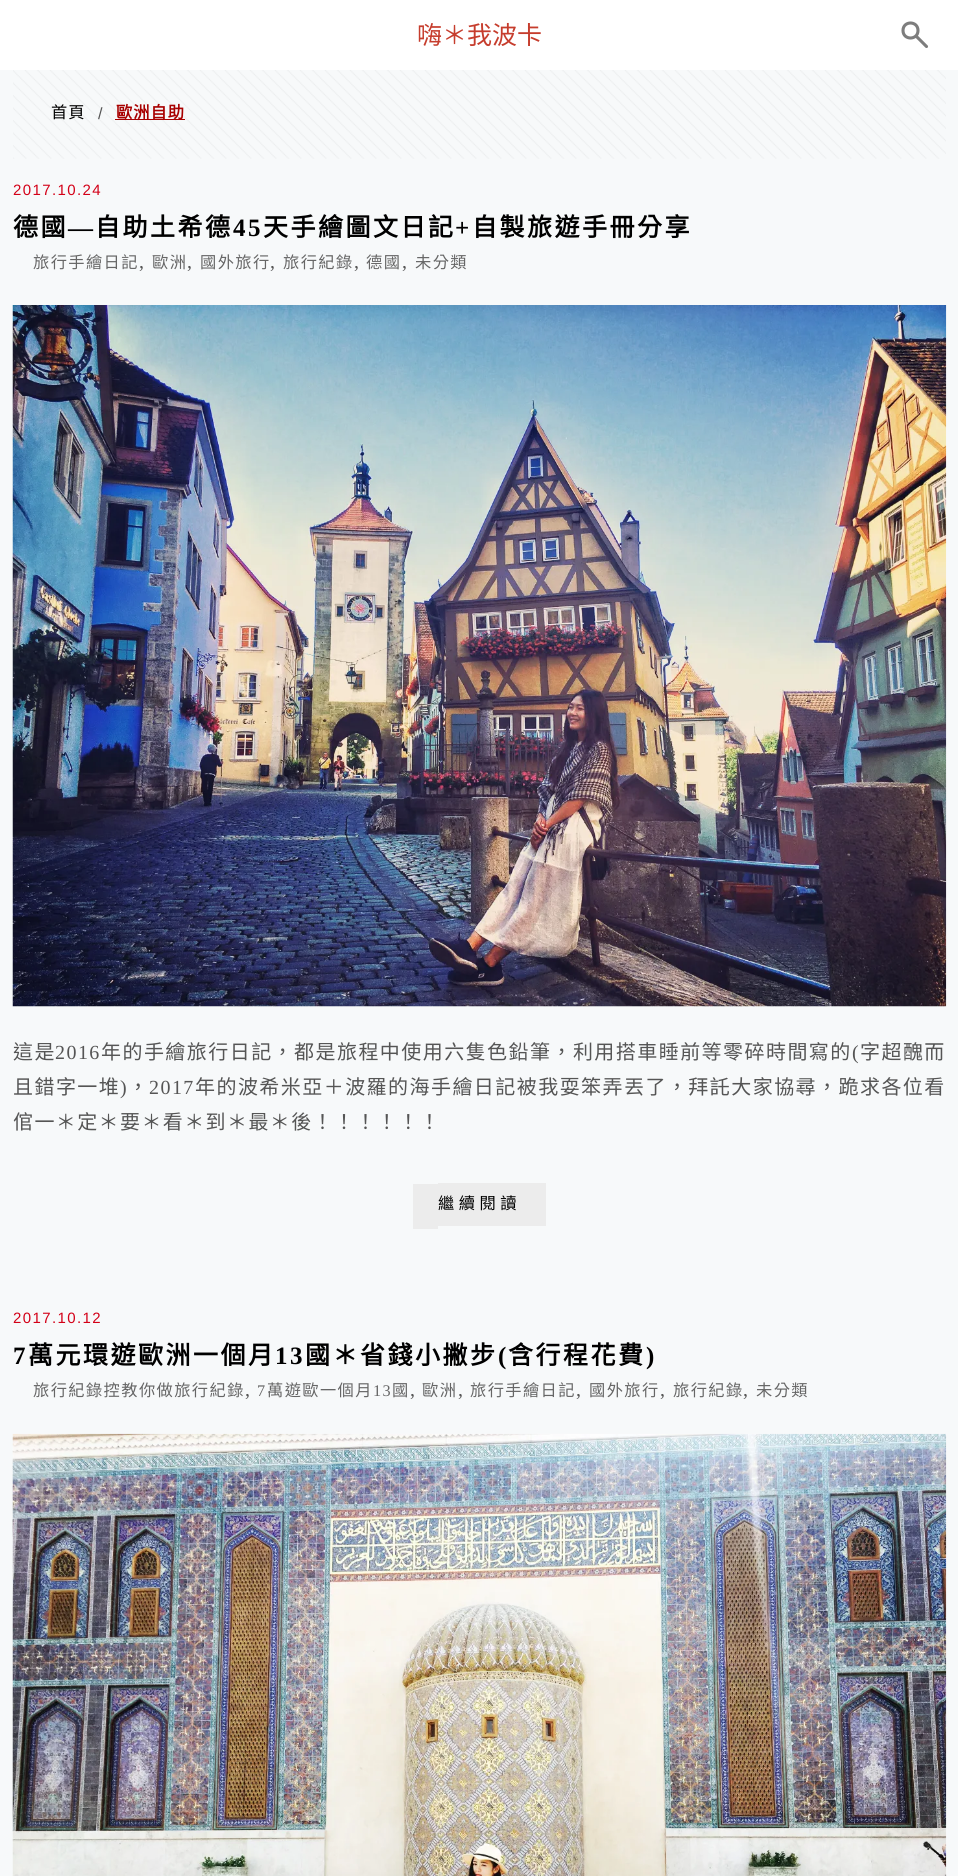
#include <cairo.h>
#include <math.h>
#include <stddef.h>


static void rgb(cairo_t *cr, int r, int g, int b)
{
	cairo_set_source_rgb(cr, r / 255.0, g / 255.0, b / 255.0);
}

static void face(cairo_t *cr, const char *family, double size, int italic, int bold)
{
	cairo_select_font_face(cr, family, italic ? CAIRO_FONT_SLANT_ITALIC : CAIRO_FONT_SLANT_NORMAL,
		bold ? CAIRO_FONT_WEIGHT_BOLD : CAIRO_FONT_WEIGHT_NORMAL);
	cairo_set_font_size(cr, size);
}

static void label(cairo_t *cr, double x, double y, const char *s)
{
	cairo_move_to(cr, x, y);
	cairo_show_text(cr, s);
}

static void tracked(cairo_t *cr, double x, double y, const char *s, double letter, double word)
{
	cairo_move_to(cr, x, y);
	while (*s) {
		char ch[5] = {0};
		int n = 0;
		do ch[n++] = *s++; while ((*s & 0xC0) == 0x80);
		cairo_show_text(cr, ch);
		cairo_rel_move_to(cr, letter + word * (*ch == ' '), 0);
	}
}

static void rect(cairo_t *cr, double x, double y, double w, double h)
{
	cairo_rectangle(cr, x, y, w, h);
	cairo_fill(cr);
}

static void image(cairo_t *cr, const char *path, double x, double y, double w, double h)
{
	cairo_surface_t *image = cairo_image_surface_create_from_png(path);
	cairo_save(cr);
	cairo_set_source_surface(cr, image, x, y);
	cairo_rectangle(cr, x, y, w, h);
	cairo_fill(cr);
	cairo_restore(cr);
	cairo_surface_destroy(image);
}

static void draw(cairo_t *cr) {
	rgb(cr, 247, 249, 250);
	cairo_paint(cr);
	rgb(cr, 255, 255, 255);
	rect(cr, 0, 0, 958, 70);
	face(cr, "Noto Sans CJK TC", 25, 0, 0);
	rgb(cr, 198, 61, 45);
	label(cr, 417, 44, "嗨＊我波卡");
	cairo_new_path(cr);
	cairo_move_to(cr, 916.5, 36.5);
	cairo_line_to(cr, 926.5, 46.5);
	cairo_move_to(cr, 918, 30.5);
	cairo_curve_to(cr, 918, 40.5, 903, 40.5, 903, 30.5);
	cairo_curve_to(cr, 903, 20.5, 918, 20.5, 918, 30.5);
	cairo_close_path(cr);
	rgb(cr, 125, 125, 125);
	cairo_set_line_width(cr, 3.1);
	cairo_set_line_cap(cr, CAIRO_LINE_CAP_ROUND);
	cairo_stroke(cr);
	image(cr, "image0.png", 13, 70, 933, 89);
	face(cr, "Noto Sans CJK TC", 16.25, 0, 0);
	rgb(cr, 0, 0, 0);
	tracked(cr, 51, 118, "首頁", 1, 0);
	face(cr, "Liberation Sans", 16.25, 0, 0);
	rgb(cr, 85, 85, 85);
	tracked(cr, 98, 119, "/", 1, 0);
	rgb(cr, 168, 0, 0);
	rect(cr, 115, 119, 70, 1);
	face(cr, "Noto Sans CJK TC", 16.25, 0, 1);
	tracked(cr, 116, 118, "歐洲自助", 1, 0);
	face(cr, "Liberation Sans", 15, 0, 0);
	rgb(cr, 211, 0, 23);
	tracked(cr, 13, 195, "2017.10.24", 1.4, 0);
	face(cr, "Noto Sans CJK TC", 25, 0, 1);
	rgb(cr, 0, 0, 0);
	tracked(cr, 13, 236, "德國", 2.5, 0);
	face(cr, "Liberation Serif", 25, 0, 1);
	tracked(cr, 68, 236, "—", 2.5, 0);
	face(cr, "Noto Sans CJK TC", 25, 0, 1);
	tracked(cr, 95, 236, "自助土希德", 2.5, 0);
	face(cr, "Liberation Serif", 25, 0, 1);
	tracked(cr, 233, 236, "45", 2.5, 0);
	face(cr, "Noto Sans CJK TC", 25, 0, 1);
	tracked(cr, 263, 236, "天手繪圖文日記", 2.5, 0);
	face(cr, "Liberation Serif", 25, 0, 1);
	tracked(cr, 455, 236, "+", 2.5, 0);
	face(cr, "Noto Sans CJK TC", 25, 0, 1);
	tracked(cr, 472, 236, "自製旅遊手冊分享", 2.5, 0);
	face(cr, "Noto Sans CJK TC", 16.25, 0, 0);
	rgb(cr, 102, 102, 102);
	tracked(cr, 33, 268, "旅行手繪日記", 1.4, 0);
	face(cr, "Liberation Serif", 20, 0, 0);
	rgb(cr, 85, 85, 85);
	tracked(cr, 139, 268, ",", 1.4, 0);
	face(cr, "Noto Sans CJK TC", 16.25, 0, 0);
	rgb(cr, 102, 102, 102);
	tracked(cr, 152, 268, "歐洲", 1.4, 0);
	face(cr, "Liberation Serif", 20, 0, 0);
	rgb(cr, 85, 85, 85);
	tracked(cr, 187, 268, ",", 1.4, 0);
	face(cr, "Noto Sans CJK TC", 16.25, 0, 0);
	rgb(cr, 102, 102, 102);
	tracked(cr, 200, 268, "國外旅行", 1.4, 0);
	face(cr, "Liberation Serif", 20, 0, 0);
	rgb(cr, 85, 85, 85);
	tracked(cr, 270, 268, ",", 1.4, 0);
	face(cr, "Noto Sans CJK TC", 16.25, 0, 0);
	rgb(cr, 102, 102, 102);
	tracked(cr, 283, 268, "旅行紀錄", 1.4, 0);
	face(cr, "Liberation Serif", 20, 0, 0);
	rgb(cr, 85, 85, 85);
	tracked(cr, 354, 268, ",", 1.4, 0);
	face(cr, "Noto Sans CJK TC", 16.25, 0, 0);
	rgb(cr, 102, 102, 102);
	tracked(cr, 366, 268, "德國", 1.4, 0);
	face(cr, "Liberation Serif", 20, 0, 0);
	rgb(cr, 85, 85, 85);
	tracked(cr, 402, 268, ",", 1.4, 0);
	face(cr, "Noto Sans CJK TC", 16.25, 0, 0);
	rgb(cr, 102, 102, 102);
	tracked(cr, 415, 268, "未分類", 1.4, 0);
	image(cr, "image1.png", 12, 305, 935, 702);
	face(cr, "Noto Sans CJK TC", 20, 0, 0);
	rgb(cr, 85, 85, 85);
	tracked(cr, 13, 1059, "這是", 1.45, 0);
	face(cr, "Liberation Serif", 20, 0, 0);
	tracked(cr, 55, 1059, "2016", 1.45, 0);
	face(cr, "Noto Sans CJK TC", 20, 0, 0);
	tracked(cr, 101, 1059, "年的手繪旅行日記，都是旅程中使用六隻色鉛筆，利用搭車睡前等零碎時間寫的", 1.45, 0);
	face(cr, "Liberation Serif", 20, 0, 0);
	tracked(cr, 852, 1059, "(", 1.45, 0);
	face(cr, "Noto Sans CJK TC", 20, 0, 0);
	tracked(cr, 860, 1059, "字超醜而", 1.45, 0);
	tracked(cr, 13, 1094, "且錯字一堆", 1.45, 0);
	face(cr, "Liberation Serif", 20, 0, 0);
	tracked(cr, 120, 1094, ")", 1.45, 0);
	face(cr, "Noto Sans CJK TC", 20, 0, 0);
	tracked(cr, 128, 1094, "，", 1.45, 0);
	face(cr, "Liberation Serif", 20, 0, 0);
	tracked(cr, 149, 1094, "2017", 1.45, 0);
	face(cr, "Noto Sans CJK TC", 20, 0, 0);
	tracked(cr, 195, 1094, "年的波希米亞＋波羅的海手繪日記被我耍笨弄丟了，拜託大家協尋，跪求各位看", 1.45, 0);
	tracked(cr, 13, 1129, "倌一＊定＊要＊看＊到＊最＊後！！！！！！", 1.4, 0);
	rgb(cr, 236, 236, 236);
	rect(cr, 438, 1183, 108, 43);
	face(cr, "Noto Sans CJK TC", 16.25, 0, 0);
	rgb(cr, 0, 0, 0);
	tracked(cr, 438, 1209, "繼續閱讀", 4.5, 0);
	rgb(cr, 236, 236, 236);
	rect(cr, 413, 1184, 25, 45);
	face(cr, "Liberation Sans", 15, 0, 0);
	rgb(cr, 211, 0, 23);
	tracked(cr, 13, 1323, "2017.10.12", 1.4, 0);
	face(cr, "Liberation Serif", 25, 0, 1);
	rgb(cr, 0, 0, 0);
	tracked(cr, 13, 1364, "7", 2.5, 0);
	face(cr, "Noto Sans CJK TC", 25, 0, 1);
	tracked(cr, 28, 1364, "萬元環遊歐洲一個月", 2.5, 0);
	face(cr, "Liberation Serif", 25, 0, 1);
	tracked(cr, 275, 1364, "13", 2.5, 0);
	face(cr, "Noto Sans CJK TC", 25, 0, 1);
	tracked(cr, 305, 1364, "國＊省錢小撇步", 2.5, 0);
	face(cr, "Liberation Serif", 25, 0, 1);
	tracked(cr, 498, 1364, "(", 2.5, 0);
	face(cr, "Noto Sans CJK TC", 25, 0, 1);
	tracked(cr, 508, 1364, "含行程花費", 2.5, 0);
	face(cr, "Liberation Serif", 25, 0, 1);
	tracked(cr, 646, 1364, ")", 2.5, 0);
	face(cr, "Noto Sans CJK TC", 16.25, 0, 0);
	rgb(cr, 102, 102, 102);
	tracked(cr, 33, 1396, "旅行紀錄控教你做旅行紀錄", 1.4, 0);
	face(cr, "Liberation Serif", 20, 0, 0);
	rgb(cr, 85, 85, 85);
	tracked(cr, 245, 1396, ",", 1.4, 0);
	face(cr, "Liberation Serif", 16.25, 0, 0);
	rgb(cr, 102, 102, 102);
	tracked(cr, 257, 1396, "7", 1.4, 0);
	face(cr, "Noto Sans CJK TC", 16.25, 0, 0);
	tracked(cr, 267, 1396, "萬遊歐一個月", 1.4, 0);
	face(cr, "Liberation Serif", 16.25, 0, 0);
	tracked(cr, 373, 1396, "13", 1.4, 0);
	face(cr, "Noto Sans CJK TC", 16.25, 0, 0);
	tracked(cr, 392, 1396, "國", 1.4, 0);
	face(cr, "Liberation Serif", 20, 0, 0);
	rgb(cr, 85, 85, 85);
	tracked(cr, 410, 1396, ",", 1.4, 0);
	face(cr, "Noto Sans CJK TC", 16.25, 0, 0);
	rgb(cr, 102, 102, 102);
	tracked(cr, 422, 1396, "歐洲", 1.4, 0);
	face(cr, "Liberation Serif", 20, 0, 0);
	rgb(cr, 85, 85, 85);
	tracked(cr, 458, 1396, ",", 1.4, 0);
	face(cr, "Noto Sans CJK TC", 16.25, 0, 0);
	rgb(cr, 102, 102, 102);
	tracked(cr, 470, 1396, "旅行手繪日記", 1.4, 0);
	face(cr, "Liberation Serif", 20, 0, 0);
	rgb(cr, 85, 85, 85);
	tracked(cr, 576, 1396, ",", 1.4, 0);
	face(cr, "Noto Sans CJK TC", 16.25, 0, 0);
	rgb(cr, 102, 102, 102);
	tracked(cr, 589, 1396, "國外旅行", 1.4, 0);
	face(cr, "Liberation Serif", 20, 0, 0);
	rgb(cr, 85, 85, 85);
	tracked(cr, 660, 1396, ",", 1.4, 0);
	face(cr, "Noto Sans CJK TC", 16.25, 0, 0);
	rgb(cr, 102, 102, 102);
	tracked(cr, 673, 1396, "旅行紀錄", 1.4, 0);
	face(cr, "Liberation Serif", 20, 0, 0);
	rgb(cr, 85, 85, 85);
	tracked(cr, 743, 1396, ",", 1.4, 0);
	face(cr, "Noto Sans CJK TC", 16.25, 0, 0);
	rgb(cr, 102, 102, 102);
	tracked(cr, 756, 1396, "未分類", 1.4, 0);
	image(cr, "image2.png", 12, 1433, 935, 443);
}

int main(void) {
	cairo_surface_t *surface = cairo_image_surface_create(CAIRO_FORMAT_RGB24, 958, 1876);
	cairo_t *cr = cairo_create(surface);
	cairo_font_options_t *options = cairo_font_options_create();
	cairo_font_options_set_hint_metrics(options, CAIRO_HINT_METRICS_OFF);
	cairo_font_options_set_hint_style(options, CAIRO_HINT_STYLE_NONE);
	cairo_set_font_options(cr, options);
	cairo_set_miter_limit(cr, 4);
	draw(cr);
	cairo_surface_write_to_png(surface, "render.png");
	cairo_font_options_destroy(options);
	cairo_destroy(cr);
	cairo_surface_destroy(surface);
	return 0;
}
